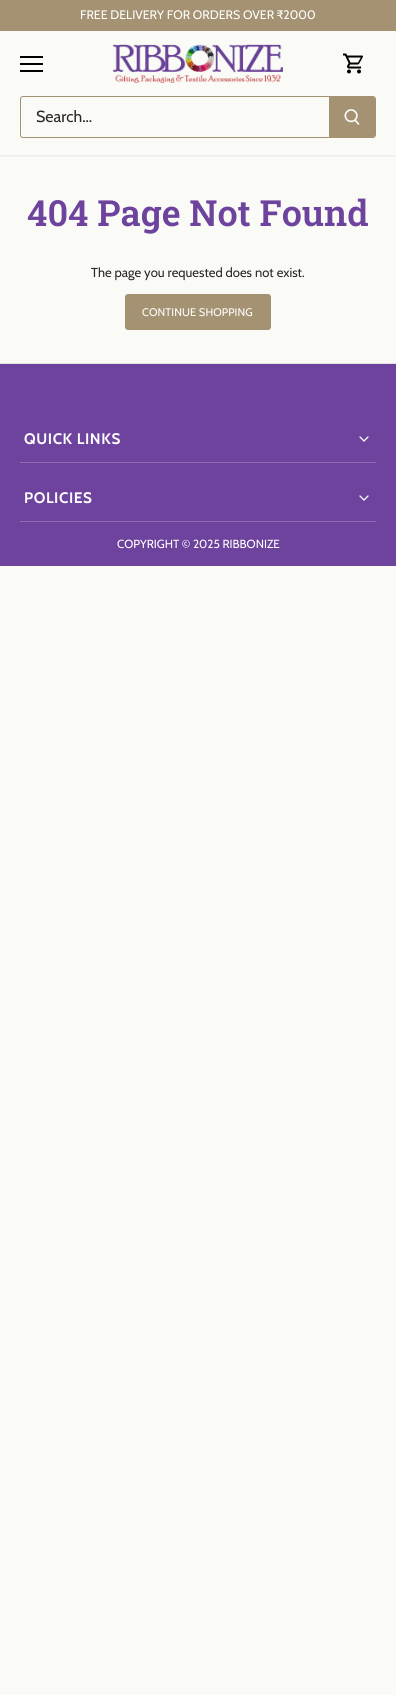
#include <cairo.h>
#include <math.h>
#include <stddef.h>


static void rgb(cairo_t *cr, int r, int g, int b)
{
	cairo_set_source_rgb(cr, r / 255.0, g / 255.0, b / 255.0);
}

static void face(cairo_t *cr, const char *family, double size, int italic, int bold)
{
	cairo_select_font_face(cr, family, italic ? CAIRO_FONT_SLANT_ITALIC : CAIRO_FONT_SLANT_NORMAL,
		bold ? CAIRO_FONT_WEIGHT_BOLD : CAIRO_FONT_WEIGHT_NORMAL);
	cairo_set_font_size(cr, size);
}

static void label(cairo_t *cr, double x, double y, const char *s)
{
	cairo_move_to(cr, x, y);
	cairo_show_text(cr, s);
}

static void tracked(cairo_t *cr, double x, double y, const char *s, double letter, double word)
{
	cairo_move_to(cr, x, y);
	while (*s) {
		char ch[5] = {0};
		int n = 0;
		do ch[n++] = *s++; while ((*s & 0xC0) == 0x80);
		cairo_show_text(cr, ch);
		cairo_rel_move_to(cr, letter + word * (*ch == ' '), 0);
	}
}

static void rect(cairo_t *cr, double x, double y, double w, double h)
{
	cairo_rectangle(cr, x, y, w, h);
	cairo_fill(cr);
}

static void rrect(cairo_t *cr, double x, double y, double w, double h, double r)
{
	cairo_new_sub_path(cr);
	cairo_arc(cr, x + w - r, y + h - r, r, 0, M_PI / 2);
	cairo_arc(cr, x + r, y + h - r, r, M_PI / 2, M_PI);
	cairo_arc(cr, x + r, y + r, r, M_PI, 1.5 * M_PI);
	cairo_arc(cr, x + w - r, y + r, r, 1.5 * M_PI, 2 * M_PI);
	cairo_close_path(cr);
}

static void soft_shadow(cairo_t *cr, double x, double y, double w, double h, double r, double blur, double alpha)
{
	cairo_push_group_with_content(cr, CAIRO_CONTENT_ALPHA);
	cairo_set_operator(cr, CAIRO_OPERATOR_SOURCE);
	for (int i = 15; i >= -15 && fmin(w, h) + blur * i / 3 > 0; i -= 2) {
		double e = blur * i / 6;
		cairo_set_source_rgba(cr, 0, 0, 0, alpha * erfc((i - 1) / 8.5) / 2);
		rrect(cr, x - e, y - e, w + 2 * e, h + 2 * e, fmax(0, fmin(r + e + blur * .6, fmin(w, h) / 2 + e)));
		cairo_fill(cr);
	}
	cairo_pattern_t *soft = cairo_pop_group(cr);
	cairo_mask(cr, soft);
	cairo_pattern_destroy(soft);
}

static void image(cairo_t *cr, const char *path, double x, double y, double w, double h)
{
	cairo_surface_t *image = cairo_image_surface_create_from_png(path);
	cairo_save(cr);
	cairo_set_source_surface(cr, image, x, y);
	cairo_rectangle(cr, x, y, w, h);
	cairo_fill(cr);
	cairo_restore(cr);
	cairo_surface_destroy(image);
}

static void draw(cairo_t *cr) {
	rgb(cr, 250, 250, 246);
	cairo_paint(cr);
	cairo_save(cr);
	cairo_rectangle(cr, 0, 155, 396, 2);
	cairo_clip(cr);
	rgb(cr, 0, 0, 0);
	soft_shadow(cr, -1, 30, 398, 126, 0, 1.5, 0.08);
	cairo_restore(cr);
	rgb(cr, 164, 146, 114);
	rect(cr, 0, 0, 396, 31);
	face(cr, "Cabin", 12.3, 0, 0);
	rgb(cr, 255, 255, 255);
	label(cr, 80, 19, "FREE DELIVERY FOR ORDERS OVER ₹2000");
	rgb(cr, 0, 0, 0);
	rect(cr, 20, 56, 23, 2);
	rect(cr, 20, 63, 23, 2);
	rect(cr, 20, 70, 23, 2);
	image(cr, "image0.png", 113, 44, 170, 39);
	image(cr, "image1.png", 343, 53, 20, 21);
	rrect(cr, 20.5, 96.5, 355, 41, 2.5);
	rgb(cr, 164, 146, 114);
	cairo_set_line_width(cr, 1);
	cairo_stroke(cr);
	rgb(cr, 250, 250, 246);
	cairo_new_path(cr);
	cairo_move_to(cr, 24, 97);
	cairo_line_to(cr, 330, 97);
	cairo_line_to(cr, 330, 137);
	cairo_line_to(cr, 24, 137);
	cairo_curve_to(cr, 22.5, 137, 21, 135.5, 21, 134);
	cairo_line_to(cr, 21, 100);
	cairo_curve_to(cr, 21, 98.5, 22.5, 97, 24, 97);
	cairo_close_path(cr);
	cairo_fill(cr);
	face(cr, "Cabin", 16, 0, 0);
	rgb(cr, 44, 37, 37);
	label(cr, 36, 122, "Search...");
	rgb(cr, 164, 146, 114);
	cairo_new_path(cr);
	cairo_move_to(cr, 329, 97);
	cairo_line_to(cr, 373, 97);
	cairo_curve_to(cr, 374, 97, 375, 98, 375, 99);
	cairo_line_to(cr, 375, 135);
	cairo_curve_to(cr, 375, 136, 374, 137, 373, 137);
	cairo_line_to(cr, 329, 137);
	cairo_close_path(cr);
	cairo_fill(cr);
	image(cr, "image2.png", 344, 109, 16, 16);
	face(cr, "Roboto Slab SemiBold", 36, 0, 0);
	rgb(cr, 109, 67, 158);
	label(cr, 27, 226, "404 Page Not Found");
	face(cr, "Cabin", 13, 0, 0);
	rgb(cr, 44, 37, 37);
	label(cr, 91, 277, "The page you requested does not exist.");
	rgb(cr, 164, 146, 114);
	rrect(cr, 126, 295, 144, 34, 2);
	cairo_fill_preserve(cr);
	cairo_set_line_width(cr, 2);
	cairo_stroke(cr);
	face(cr, "Cabin", 11, 0, 0);
	rgb(cr, 255, 255, 255);
	tracked(cr, 142, 316, "CONTINUE SHOPPING", 0.1, 0);
	rgb(cr, 109, 67, 158);
	rect(cr, 0, 364, 396, 202);
	rgb(cr, 226, 226, 226);
	rect(cr, 0, 363, 396, 1);
	rgb(cr, 141, 108, 179);
	rect(cr, 20, 462, 356, 1);
	face(cr, "Cabin", 15.25, 0, 1);
	rgb(cr, 255, 255, 255);
	tracked(cr, 24, 444, "QUICK LINKS", 0.6, 0);
	cairo_new_path(cr);
	cairo_move_to(cr, 360, 437);
	cairo_line_to(cr, 364, 441);
	cairo_line_to(cr, 368, 437);
	cairo_set_line_width(cr, 1.3);
	cairo_set_line_cap(cr, CAIRO_LINE_CAP_ROUND);
	cairo_stroke(cr);
	rgb(cr, 141, 108, 179);
	rect(cr, 20, 521, 356, 1);
	rgb(cr, 255, 255, 255);
	tracked(cr, 24, 503, "POLICIES", 0.6, 0);
	cairo_new_path(cr);
	cairo_move_to(cr, 360, 496);
	cairo_line_to(cr, 364, 500);
	cairo_line_to(cr, 368, 496);
	cairo_stroke(cr);
	face(cr, "Cabin", 11.75, 0, 0);
	label(cr, 117, 548, "COPYRIGHT © 2025 RIBBONIZE");
}

int main(void) {
	cairo_surface_t *surface = cairo_image_surface_create(CAIRO_FORMAT_RGB24, 396, 1695);
	cairo_t *cr = cairo_create(surface);
	cairo_font_options_t *options = cairo_font_options_create();
	cairo_font_options_set_hint_metrics(options, CAIRO_HINT_METRICS_OFF);
	cairo_font_options_set_hint_style(options, CAIRO_HINT_STYLE_NONE);
	cairo_set_font_options(cr, options);
	cairo_set_miter_limit(cr, 4);
	draw(cr);
	cairo_surface_write_to_png(surface, "render.png");
	cairo_font_options_destroy(options);
	cairo_destroy(cr);
	cairo_surface_destroy(surface);
	return 0;
}
